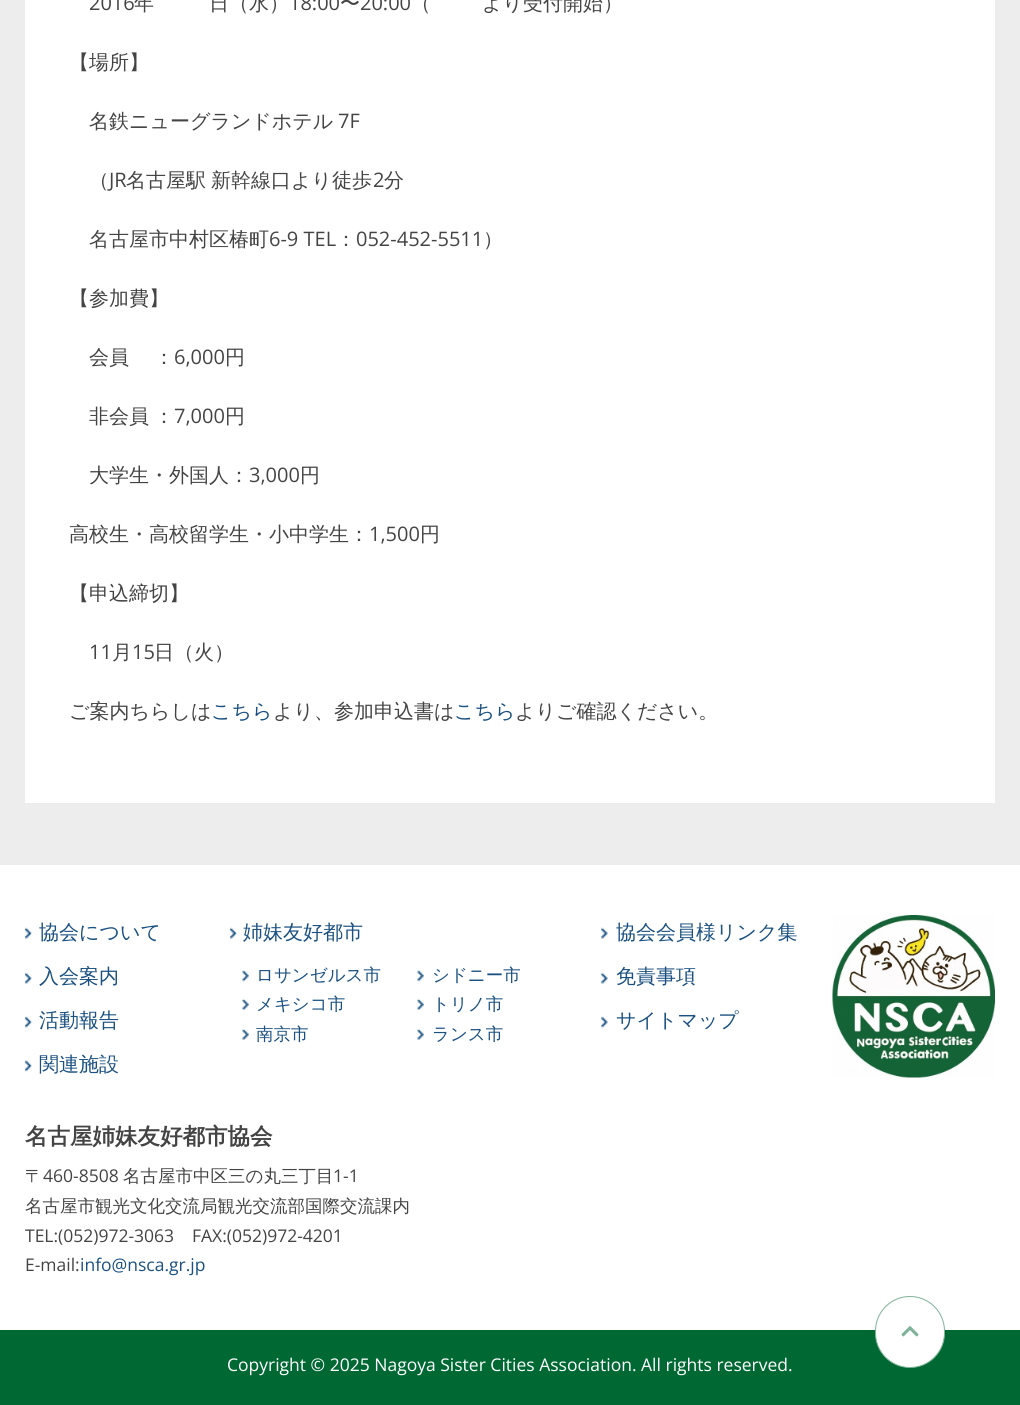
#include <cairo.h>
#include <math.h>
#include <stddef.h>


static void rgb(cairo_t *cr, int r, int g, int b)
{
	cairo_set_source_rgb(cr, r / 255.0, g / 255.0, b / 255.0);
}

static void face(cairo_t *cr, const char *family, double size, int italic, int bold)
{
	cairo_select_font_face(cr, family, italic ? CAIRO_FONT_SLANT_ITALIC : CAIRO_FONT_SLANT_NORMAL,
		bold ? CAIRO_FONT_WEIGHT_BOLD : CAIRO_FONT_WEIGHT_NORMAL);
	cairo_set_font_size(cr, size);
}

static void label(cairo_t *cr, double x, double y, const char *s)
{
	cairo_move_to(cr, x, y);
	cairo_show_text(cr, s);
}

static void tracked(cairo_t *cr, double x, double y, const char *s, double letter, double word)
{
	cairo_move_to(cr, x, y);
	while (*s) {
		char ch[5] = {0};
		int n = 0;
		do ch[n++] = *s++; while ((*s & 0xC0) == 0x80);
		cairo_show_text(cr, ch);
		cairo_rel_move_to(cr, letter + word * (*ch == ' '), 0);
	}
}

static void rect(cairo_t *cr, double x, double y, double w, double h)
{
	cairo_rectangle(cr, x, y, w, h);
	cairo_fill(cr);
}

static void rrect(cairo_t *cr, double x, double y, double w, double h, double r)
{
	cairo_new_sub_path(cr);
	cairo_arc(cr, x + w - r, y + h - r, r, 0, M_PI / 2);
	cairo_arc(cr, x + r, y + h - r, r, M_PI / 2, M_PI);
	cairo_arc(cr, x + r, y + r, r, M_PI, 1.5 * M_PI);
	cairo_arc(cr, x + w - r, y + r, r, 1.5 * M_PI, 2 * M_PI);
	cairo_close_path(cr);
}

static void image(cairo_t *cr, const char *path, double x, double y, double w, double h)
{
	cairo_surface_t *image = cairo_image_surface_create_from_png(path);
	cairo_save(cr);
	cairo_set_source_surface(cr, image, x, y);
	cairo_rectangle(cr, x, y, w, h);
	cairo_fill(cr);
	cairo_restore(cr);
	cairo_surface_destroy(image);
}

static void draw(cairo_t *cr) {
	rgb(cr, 255, 255, 255);
	cairo_paint(cr);
	rgb(cr, 237, 237, 237);
	rect(cr, 0, 0, 1020, 865);
	rgb(cr, 255, 255, 255);
	rect(cr, 25, 0, 970, 803);
	face(cr, "Open Sans", 20, 0, 0);
	rgb(cr, 68, 68, 68);
	label(cr, 89, 10, "2016");
	face(cr, "WenQuanYi Zen Hei Medium", 20, 0, 0);
	label(cr, 134, 10, "年");
	label(cr, 209, 10, "日（水）");
	face(cr, "Open Sans", 20, 0, 0);
	label(cr, 289, 10, "18:00");
	face(cr, "WenQuanYi Zen Hei Medium", 20, 0, 0);
	label(cr, 340, 10, "〜");
	face(cr, "Open Sans", 20, 0, 0);
	label(cr, 360, 10, "20:00");
	face(cr, "WenQuanYi Zen Hei Medium", 20, 0, 0);
	label(cr, 411, 10, "（");
	label(cr, 482, 10, "より受付開始）");
	label(cr, 69, 69, "【場所】");
	label(cr, 89, 128, "名鉄ニューグランドホテル");
	face(cr, "Open Sans", 20, 0, 0);
	label(cr, 338, 128, "7F");
	face(cr, "WenQuanYi Zen Hei Medium", 20, 0, 0);
	label(cr, 89, 187, "（");
	face(cr, "Open Sans", 20, 0, 0);
	label(cr, 109, 187, "JR");
	face(cr, "WenQuanYi Zen Hei Medium", 20, 0, 0);
	tracked(cr, 126, 187, "名古屋駅 新幹線口より徒歩", 0, -1);
	face(cr, "Open Sans", 20, 0, 0);
	label(cr, 373, 187, "2");
	face(cr, "WenQuanYi Zen Hei Medium", 20, 0, 0);
	label(cr, 384, 187, "分");
	label(cr, 89, 246, "名古屋市中村区椿町");
	face(cr, "Open Sans", 20, 0, 0);
	label(cr, 269, 246, "6-9 TEL");
	face(cr, "WenQuanYi Zen Hei Medium", 20, 0, 0);
	label(cr, 336, 246, "：");
	face(cr, "Open Sans", 20, 0, 0);
	label(cr, 356, 246, "052-452-5511");
	face(cr, "WenQuanYi Zen Hei Medium", 20, 0, 0);
	label(cr, 483, 246, "）");
	label(cr, 69, 305, "【参加費】");
	tracked(cr, 89, 364, "会員　 ：", 0, -1);
	face(cr, "Open Sans", 20, 0, 0);
	label(cr, 174, 364, "6,000");
	face(cr, "WenQuanYi Zen Hei Medium", 20, 0, 0);
	label(cr, 225, 364, "円");
	tracked(cr, 89, 423, "非会員 ：", 0, -1);
	face(cr, "Open Sans", 20, 0, 0);
	label(cr, 174, 423, "7,000");
	face(cr, "WenQuanYi Zen Hei Medium", 20, 0, 0);
	label(cr, 225, 423, "円");
	label(cr, 89, 482, "大学生・外国人：");
	face(cr, "Open Sans", 20, 0, 0);
	label(cr, 249, 482, "3,000");
	face(cr, "WenQuanYi Zen Hei Medium", 20, 0, 0);
	label(cr, 300, 482, "円");
	label(cr, 69, 541, "高校生・高校留学生・小中学生：");
	face(cr, "Open Sans", 20, 0, 0);
	label(cr, 369, 541, "1,500");
	face(cr, "WenQuanYi Zen Hei Medium", 20, 0, 0);
	label(cr, 420, 541, "円");
	label(cr, 69, 600, "【申込締切】");
	face(cr, "Open Sans", 20, 0, 0);
	label(cr, 89, 659, "11");
	face(cr, "WenQuanYi Zen Hei Medium", 20, 0, 0);
	label(cr, 112, 659, "月");
	face(cr, "Open Sans", 20, 0, 0);
	label(cr, 132, 659, "15");
	face(cr, "WenQuanYi Zen Hei Medium", 20, 0, 0);
	label(cr, 154, 659, "日（火）");
	label(cr, 69, 718, "ご案内ちらしは");
	rgb(cr, 26, 81, 130);
	label(cr, 211, 718, "こちら");
	rgb(cr, 68, 68, 68);
	label(cr, 273, 718, "より、参加申込書は");
	rgb(cr, 26, 81, 130);
	label(cr, 454, 718, "こちら");
	rgb(cr, 68, 68, 68);
	label(cr, 515, 718, "よりご確認ください。");
	rgb(cr, 0, 104, 51);
	rect(cr, 0, 1330, 1020, 75);
	rgb(cr, 255, 255, 255);
	rrect(cr, 875.5, 1296.5, 69, 71, 34.5);
	cairo_fill_preserve(cr);
	rgb(cr, 127, 179, 153);
	cairo_set_line_width(cr, 1);
	cairo_stroke(cr);
	image(cr, "image0.png", 901, 1326, 18, 11);
	image(cr, "image1.png", 25, 927, 7, 12);
	rgb(cr, 26, 81, 130);
	label(cr, 39, 939, "協会について");
	image(cr, "image1.png", 25, 972, 7, 12);
	label(cr, 39, 983, "入会案内");
	image(cr, "image2.png", 25, 1016, 7, 12);
	label(cr, 39, 1027, "活動報告");
	image(cr, "image3.png", 25, 1060, 7, 12);
	label(cr, 39, 1071, "関連施設");
	image(cr, "image4.png", 230, 927, 7, 12);
	label(cr, 243, 939, "姉妹友好都市");
	image(cr, "image5.png", 242, 970, 7, 12);
	face(cr, "WenQuanYi Zen Hei Medium", 17.5, 0, 0);
	label(cr, 256, 981, "ロサンゼルス市");
	image(cr, "image6.png", 242, 998, 7, 12);
	label(cr, 256, 1010, "メキシコ市");
	image(cr, "image6.png", 242, 1028, 7, 12);
	label(cr, 256, 1040, "南京市");
	image(cr, "image5.png", 417, 970, 7, 12);
	label(cr, 432, 981, "シドニー市");
	image(cr, "image6.png", 417, 998, 7, 12);
	label(cr, 432, 1010, "トリノ市");
	image(cr, "image6.png", 417, 1028, 7, 12);
	label(cr, 432, 1040, "ランス市");
	image(cr, "image7.png", 601, 927, 7, 12);
	face(cr, "WenQuanYi Zen Hei Medium", 20, 0, 0);
	label(cr, 616, 939, "協会会員様リンク集");
	image(cr, "image7.png", 601, 972, 7, 12);
	label(cr, 616, 983, "免責事項");
	image(cr, "image8.png", 601, 1016, 7, 12);
	label(cr, 616, 1027, "サイトマップ");
	image(cr, "image9.png", 832, 915, 163, 163);
	face(cr, "WenQuanYi Zen Hei", 22.5, 0, 1);
	rgb(cr, 68, 68, 68);
	label(cr, 25, 1144, "名古屋姉妹友好都市協会");
	face(cr, "WenQuanYi Zen Hei Medium", 17.5, 0, 0);
	label(cr, 25, 1182, "〒");
	face(cr, "Open Sans", 17.5, 0, 0);
	label(cr, 43, 1182, "460-8508");
	face(cr, "WenQuanYi Zen Hei Medium", 17.5, 0, 0);
	label(cr, 123, 1182, "名古屋市中区三の丸三丁目");
	face(cr, "Open Sans", 17.5, 0, 0);
	label(cr, 333, 1182, "1-1");
	face(cr, "WenQuanYi Zen Hei Medium", 17.5, 0, 0);
	label(cr, 25, 1212, "名古屋市観光文化交流局観光交流部国際交流課内");
	face(cr, "Open Sans", 17.5, 0, 0);
	label(cr, 25, 1242, "TEL:(052)972-3063");
	label(cr, 192, 1242, "FAX:(052)972-4201");
	label(cr, 25, 1271, "E-mail:");
	rgb(cr, 26, 81, 130);
	label(cr, 80, 1271, "info@nsca.gr.jp");
	rgb(cr, 255, 255, 255);
	label(cr, 227, 1371, "Copyright © 2025 Nagoya Sister Cities Association. All rights reserved.");
}

int main(void) {
	cairo_surface_t *surface = cairo_image_surface_create(CAIRO_FORMAT_RGB24, 1020, 1405);
	cairo_t *cr = cairo_create(surface);
	cairo_font_options_t *options = cairo_font_options_create();
	cairo_font_options_set_hint_metrics(options, CAIRO_HINT_METRICS_OFF);
	cairo_font_options_set_hint_style(options, CAIRO_HINT_STYLE_NONE);
	cairo_set_font_options(cr, options);
	cairo_set_miter_limit(cr, 4);
	draw(cr);
	cairo_surface_write_to_png(surface, "render.png");
	cairo_font_options_destroy(options);
	cairo_destroy(cr);
	cairo_surface_destroy(surface);
	return 0;
}
